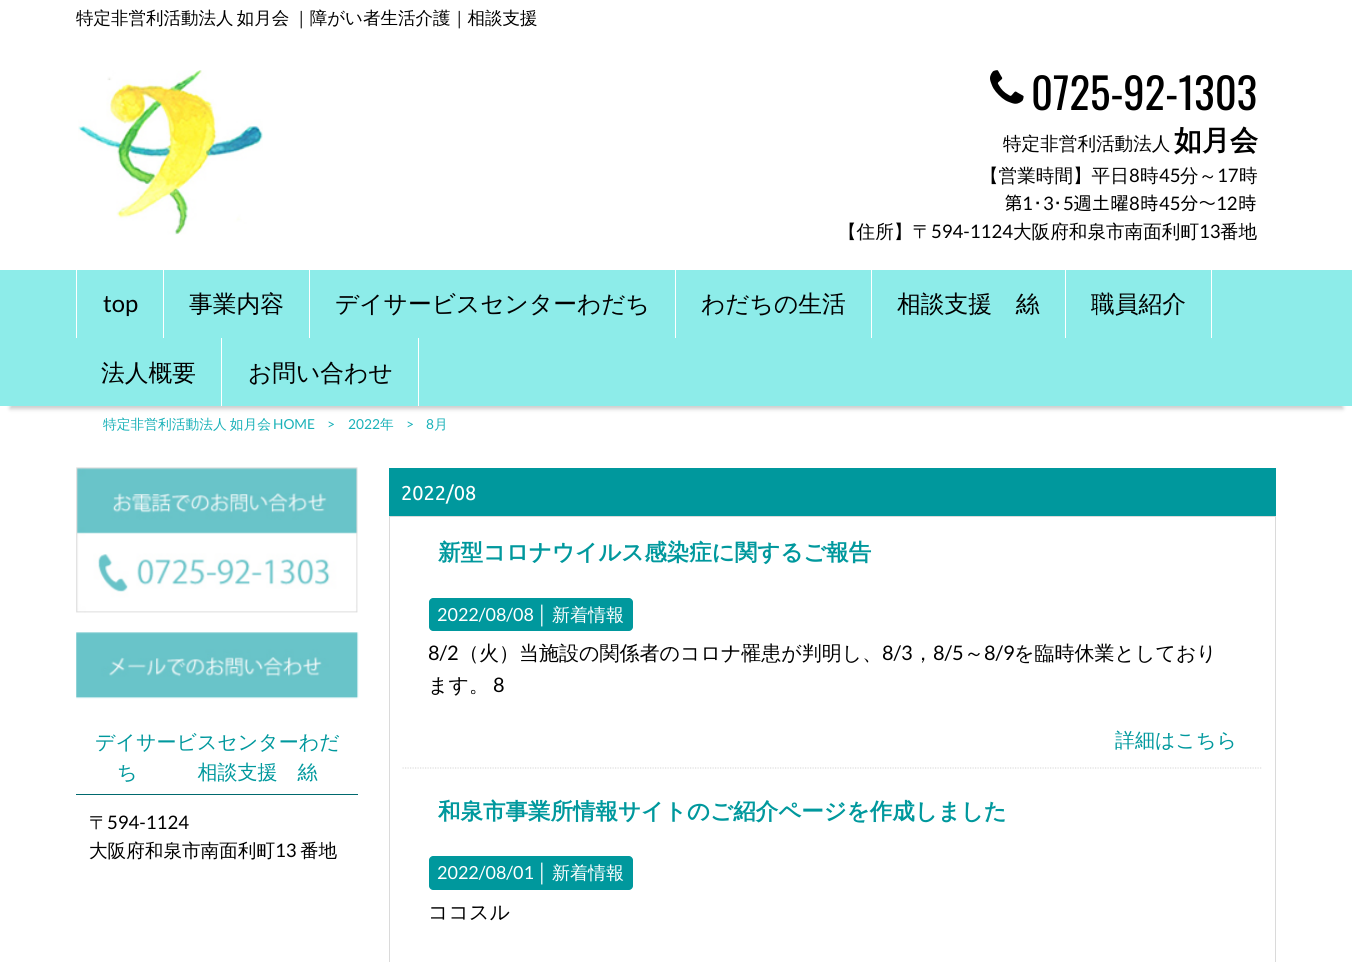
#include <cairo.h>
#include <math.h>
#include <stddef.h>


static void rgb(cairo_t *cr, int r, int g, int b)
{
	cairo_set_source_rgb(cr, r / 255.0, g / 255.0, b / 255.0);
}

static void face(cairo_t *cr, const char *family, double size, int italic, int bold)
{
	cairo_select_font_face(cr, family, italic ? CAIRO_FONT_SLANT_ITALIC : CAIRO_FONT_SLANT_NORMAL,
		bold ? CAIRO_FONT_WEIGHT_BOLD : CAIRO_FONT_WEIGHT_NORMAL);
	cairo_set_font_size(cr, size);
}

static void label(cairo_t *cr, double x, double y, const char *s)
{
	cairo_move_to(cr, x, y);
	cairo_show_text(cr, s);
}

static void tracked(cairo_t *cr, double x, double y, const char *s, double letter, double word)
{
	cairo_move_to(cr, x, y);
	while (*s) {
		char ch[5] = {0};
		int n = 0;
		do ch[n++] = *s++; while ((*s & 0xC0) == 0x80);
		cairo_show_text(cr, ch);
		cairo_rel_move_to(cr, letter + word * (*ch == ' '), 0);
	}
}

static void rect(cairo_t *cr, double x, double y, double w, double h)
{
	cairo_rectangle(cr, x, y, w, h);
	cairo_fill(cr);
}

static void rrect(cairo_t *cr, double x, double y, double w, double h, double r)
{
	cairo_new_sub_path(cr);
	cairo_arc(cr, x + w - r, y + h - r, r, 0, M_PI / 2);
	cairo_arc(cr, x + r, y + h - r, r, M_PI / 2, M_PI);
	cairo_arc(cr, x + r, y + r, r, M_PI, 1.5 * M_PI);
	cairo_arc(cr, x + w - r, y + r, r, 1.5 * M_PI, 2 * M_PI);
	cairo_close_path(cr);
}

static void soft_shadow(cairo_t *cr, double x, double y, double w, double h, double r, double blur, double alpha)
{
	cairo_push_group_with_content(cr, CAIRO_CONTENT_ALPHA);
	cairo_set_operator(cr, CAIRO_OPERATOR_SOURCE);
	for (int i = 15; i >= -15 && fmin(w, h) + blur * i / 3 > 0; i -= 2) {
		double e = blur * i / 6;
		cairo_set_source_rgba(cr, 0, 0, 0, alpha * erfc((i - 1) / 8.5) / 2);
		rrect(cr, x - e, y - e, w + 2 * e, h + 2 * e, fmax(0, fmin(r + e + blur * .6, fmin(w, h) / 2 + e)));
		cairo_fill(cr);
	}
	cairo_pattern_t *soft = cairo_pop_group(cr);
	cairo_mask(cr, soft);
	cairo_pattern_destroy(soft);
}

static void image(cairo_t *cr, const char *path, double x, double y, double w, double h)
{
	cairo_surface_t *image = cairo_image_surface_create_from_png(path);
	cairo_save(cr);
	cairo_set_source_surface(cr, image, x, y);
	cairo_rectangle(cr, x, y, w, h);
	cairo_fill(cr);
	cairo_restore(cr);
	cairo_surface_destroy(image);
}

static void draw(cairo_t *cr) {
	rgb(cr, 255, 255, 255);
	cairo_paint(cr);
	face(cr, "WenQuanYi Zen Hei Medium", 17.5, 0, 0);
	rgb(cr, 0, 0, 0);
	tracked(cr, 76, 24, "特定非営利活動法人 如月会 ｜障がい者生活介護｜相談支援", 0, -2);
	image(cr, "image0.png", 78, 70, 185, 165);
	image(cr, "image1.png", 990, 70, 34, 34);
	face(cr, "Oswald", 42.75, 0, 0);
	label(cr, 1031, 110, "0725-92-1303");
	face(cr, "WenQuanYi Zen Hei Medium", 18.6, 0, 0);
	label(cr, 1003, 150, "特定非営利活動法人");
	face(cr, "WenQuanYi Zen Hei", 28, 0, 1);
	label(cr, 1174, 150, "如月会");
	face(cr, "WenQuanYi Zen Hei Medium", 18.6, 0, 0);
	label(cr, 980, 182, "【営業時間】平日");
	face(cr, "Lato", 18.6, 0, 0);
	label(cr, 1129, 182, "8");
	face(cr, "WenQuanYi Zen Hei Medium", 18.6, 0, 0);
	label(cr, 1140, 182, "時");
	face(cr, "Lato", 18.6, 0, 0);
	label(cr, 1159, 182, "45");
	face(cr, "WenQuanYi Zen Hei Medium", 18.6, 0, 0);
	label(cr, 1180, 182, "分～");
	face(cr, "Lato", 18.6, 0, 0);
	label(cr, 1217, 182, "17");
	face(cr, "WenQuanYi Zen Hei Medium", 18.6, 0, 0);
	label(cr, 1239, 182, "時");
	face(cr, "IPAPGothic", 18.6, 0, 0);
	label(cr, 1004, 210, "第");
	face(cr, "Lato", 18.6, 0, 0);
	label(cr, 1022, 210, "1");
	face(cr, "IPAPGothic", 18.6, 0, 0);
	label(cr, 1033, 210, "･");
	face(cr, "Lato", 18.6, 0, 0);
	label(cr, 1043, 210, "3");
	face(cr, "IPAPGothic", 18.6, 0, 0);
	label(cr, 1053, 210, "･");
	face(cr, "Lato", 18.6, 0, 0);
	label(cr, 1063, 210, "5");
	face(cr, "IPAPGothic", 18.6, 0, 0);
	label(cr, 1073, 210, "週土曜");
	face(cr, "Lato", 18.6, 0, 0);
	label(cr, 1129, 210, "8");
	face(cr, "IPAPGothic", 18.6, 0, 0);
	label(cr, 1140, 210, "時");
	face(cr, "Lato", 18.6, 0, 0);
	label(cr, 1159, 210, "45");
	face(cr, "IPAPGothic", 18.6, 0, 0);
	label(cr, 1180, 210, "分～");
	face(cr, "Lato", 18.6, 0, 0);
	label(cr, 1216, 210, "12");
	face(cr, "IPAPGothic", 18.6, 0, 0);
	label(cr, 1238, 210, "時");
	face(cr, "WenQuanYi Zen Hei Medium", 18.6, 0, 0);
	label(cr, 838, 238, "【住所】〒");
	face(cr, "Lato", 18.6, 0, 0);
	label(cr, 931, 238, "594-1124");
	face(cr, "WenQuanYi Zen Hei Medium", 18.6, 0, 0);
	label(cr, 1013, 238, "大阪府和泉市南面利町");
	face(cr, "Lato", 18.6, 0, 0);
	label(cr, 1199, 238, "13");
	face(cr, "WenQuanYi Zen Hei Medium", 18.6, 0, 0);
	label(cr, 1220, 238, "番地");
	rgb(cr, 204, 204, 204);
	soft_shadow(cr, 10, 293, 1333, 116, 0, 2, 1);
	rgb(cr, 141, 236, 233);
	rect(cr, 0, 270, 1352, 136);
	rgb(cr, 255, 255, 255);
	rect(cr, 163, 270, 1, 68);
	rect(cr, 76, 270, 1, 68);
	face(cr, "Lato", 23.75, 0, 0);
	rgb(cr, 0, 0, 0);
	label(cr, 103, 312, "top");
	rgb(cr, 255, 255, 255);
	rect(cr, 309, 270, 1, 68);
	face(cr, "WenQuanYi Zen Hei Medium", 23.75, 0, 0);
	rgb(cr, 0, 0, 0);
	label(cr, 189, 312, "事業内容");
	rgb(cr, 255, 255, 255);
	rect(cr, 675, 270, 1, 68);
	rgb(cr, 0, 0, 0);
	label(cr, 335, 312, "デイサービスセンターわだち");
	rgb(cr, 255, 255, 255);
	rect(cr, 871, 270, 1, 68);
	rgb(cr, 0, 0, 0);
	label(cr, 701, 312, "わだちの生活");
	rgb(cr, 255, 255, 255);
	rect(cr, 1065, 270, 1, 68);
	rgb(cr, 0, 0, 0);
	label(cr, 897, 312, "相談支援　絲");
	rgb(cr, 255, 255, 255);
	rect(cr, 1211, 270, 1, 68);
	rgb(cr, 0, 0, 0);
	label(cr, 1091, 312, "職員紹介");
	rgb(cr, 255, 255, 255);
	rect(cr, 221, 338, 1, 68);
	rgb(cr, 0, 0, 0);
	label(cr, 101, 381, "法人概要");
	rgb(cr, 255, 255, 255);
	rect(cr, 418, 338, 1, 68);
	rgb(cr, 0, 0, 0);
	label(cr, 248, 381, "お問い合わせ");
	face(cr, "WenQuanYi Zen Hei Medium", 13.75, 0, 0);
	rgb(cr, 25, 177, 184);
	tracked(cr, 103, 429, "特定非営利活動法人 如月会", 0, -1);
	face(cr, "Lato", 13.75, 0, 0);
	label(cr, 273, 429, "HOME");
	label(cr, 327, 429, ">");
	label(cr, 348, 429, "2022");
	face(cr, "WenQuanYi Zen Hei Medium", 13.75, 0, 0);
	label(cr, 380, 429, "年");
	face(cr, "Lato", 13.75, 0, 0);
	label(cr, 406, 429, ">");
	label(cr, 426, 429, "8");
	face(cr, "WenQuanYi Zen Hei Medium", 13.75, 0, 0);
	label(cr, 434, 429, "月");
	image(cr, "image2.png", 76, 467, 282, 146);
	image(cr, "image3.png", 76, 632, 283, 67);
	rgb(cr, 0, 105, 110);
	rect(cr, 76, 794, 282, 1);
	face(cr, "WenQuanYi Zen Hei Medium", 20, 0, 0);
	rgb(cr, 0, 152, 157);
	label(cr, 95, 749, "デイサービスセンターわだ");
	label(cr, 117, 779, "ち　　　相談支援　絲");
	face(cr, "WenQuanYi Zen Hei Medium", 18.6, 0, 0);
	rgb(cr, 0, 0, 0);
	label(cr, 89, 829, "〒");
	face(cr, "Lato", 18.6, 0, 0);
	label(cr, 107, 829, "594-1124");
	face(cr, "WenQuanYi Zen Hei Medium", 18.6, 0, 0);
	label(cr, 89, 857, "大阪府和泉市南面利町");
	face(cr, "Lato", 18.6, 0, 0);
	label(cr, 275, 857, "13");
	face(cr, "WenQuanYi Zen Hei Medium", 18.6, 0, 0);
	label(cr, 300, 857, "番地");
	rgb(cr, 0, 152, 157);
	rect(cr, 389, 468, 887, 48);
	face(cr, "Ubuntu", 20, 0, 0);
	rgb(cr, 255, 255, 255);
	label(cr, 401, 500, "2022/08");
	cairo_rectangle(cr, 389.5, 516.5, 886, 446);
	rgb(cr, 218, 218, 218);
	cairo_set_line_width(cr, 1);
	cairo_stroke(cr);
	cairo_new_path(cr);
	cairo_move_to(cr, 402.5, 768);
	cairo_line_to(cr, 1262.5, 768);
	rgb(cr, 221, 221, 221);
	cairo_set_line_width(cr, 1.2);
	cairo_set_dash(cr, (double[]){1.25, 1.25}, 2, 0);
	cairo_stroke(cr);
	face(cr, "WenQuanYi Zen Hei", 22.5, 0, 1);
	rgb(cr, 0, 152, 157);
	label(cr, 438, 560, "新型コロナウイルス感染症に関するご報告");
	cairo_new_path(cr);
	cairo_move_to(cr, 433, 598);
	cairo_line_to(cr, 553, 598);
	cairo_line_to(cr, 553, 631);
	cairo_line_to(cr, 433, 631);
	cairo_curve_to(cr, 431, 631, 429, 629, 429, 627);
	cairo_line_to(cr, 429, 602);
	cairo_curve_to(cr, 429, 600, 431, 598, 433, 598);
	cairo_close_path(cr);
	cairo_fill(cr);
	face(cr, "Lato", 18, 0, 0);
	rgb(cr, 255, 255, 255);
	label(cr, 437, 621, "2022/08/08");
	face(cr, "Liberation Sans", 18, 0, 0);
	label(cr, 537, 621, "│");
	rgb(cr, 0, 152, 157);
	cairo_new_path(cr);
	cairo_move_to(cr, 553, 598);
	cairo_line_to(cr, 629, 598);
	cairo_curve_to(cr, 631, 598, 633, 600, 633, 602);
	cairo_line_to(cr, 633, 627);
	cairo_curve_to(cr, 633, 629, 631, 631, 629, 631);
	cairo_line_to(cr, 553, 631);
	cairo_close_path(cr);
	cairo_fill(cr);
	face(cr, "WenQuanYi Zen Hei Medium", 18, 0, 0);
	rgb(cr, 255, 255, 255);
	label(cr, 552, 621, "新着情報");
	face(cr, "Lato", 20, 0, 0);
	rgb(cr, 0, 0, 0);
	label(cr, 428, 660, "8/2");
	face(cr, "WenQuanYi Zen Hei Medium", 20, 0, 0);
	label(cr, 459, 660, "（火）当施設の関係者のコロナ罹患が判明し、");
	face(cr, "Lato", 20, 0, 0);
	label(cr, 882, 660, "8/3");
	label(cr, 933, 660, "8/5");
	face(cr, "WenQuanYi Zen Hei Medium", 20, 0, 0);
	label(cr, 964, 660, "～");
	face(cr, "Lato", 20, 0, 0);
	label(cr, 984, 660, "8/9");
	face(cr, "WenQuanYi Zen Hei Medium", 20, 0, 0);
	label(cr, 1014, 660, "を臨時休業としており");
	label(cr, 913, 660, "，");
	label(cr, 428, 692, "ます。");
	face(cr, "Lato", 20, 0, 0);
	label(cr, 493, 692, "8");
	face(cr, "WenQuanYi Zen Hei Medium", 20, 0, 0);
	rgb(cr, 0, 152, 157);
	label(cr, 1115, 747, "詳細はこちら");
	face(cr, "WenQuanYi Zen Hei", 22.5, 0, 1);
	label(cr, 438, 819, "和泉市事業所情報サイトのご紹介ページを作成しました");
	cairo_new_path(cr);
	cairo_move_to(cr, 433, 856);
	cairo_line_to(cr, 553, 856);
	cairo_line_to(cr, 553, 890);
	cairo_line_to(cr, 433, 890);
	cairo_curve_to(cr, 431, 890, 429, 888, 429, 886);
	cairo_line_to(cr, 429, 860);
	cairo_curve_to(cr, 429, 858, 431, 856, 433, 856);
	cairo_close_path(cr);
	cairo_fill(cr);
	face(cr, "Lato", 18, 0, 0);
	rgb(cr, 255, 255, 255);
	label(cr, 437, 879, "2022/08/01");
	face(cr, "Liberation Sans", 18, 0, 0);
	label(cr, 537, 879, "│");
	rgb(cr, 0, 152, 157);
	cairo_new_path(cr);
	cairo_move_to(cr, 553, 856);
	cairo_line_to(cr, 629, 856);
	cairo_curve_to(cr, 631, 856, 633, 858, 633, 860);
	cairo_line_to(cr, 633, 886);
	cairo_curve_to(cr, 633, 888, 631, 890, 629, 890);
	cairo_line_to(cr, 553, 890);
	cairo_close_path(cr);
	cairo_fill(cr);
	face(cr, "WenQuanYi Zen Hei Medium", 18, 0, 0);
	rgb(cr, 255, 255, 255);
	label(cr, 552, 879, "新着情報");
	face(cr, "WenQuanYi Zen Hei Medium", 20, 0, 0);
	rgb(cr, 0, 0, 0);
	label(cr, 428, 919, "ココスル");
}

int main(void) {
	cairo_surface_t *surface = cairo_image_surface_create(CAIRO_FORMAT_RGB24, 1352, 962);
	cairo_t *cr = cairo_create(surface);
	cairo_font_options_t *options = cairo_font_options_create();
	cairo_font_options_set_hint_metrics(options, CAIRO_HINT_METRICS_OFF);
	cairo_font_options_set_hint_style(options, CAIRO_HINT_STYLE_NONE);
	cairo_set_font_options(cr, options);
	cairo_set_miter_limit(cr, 4);
	draw(cr);
	cairo_surface_write_to_png(surface, "render.png");
	cairo_font_options_destroy(options);
	cairo_destroy(cr);
	cairo_surface_destroy(surface);
	return 0;
}
